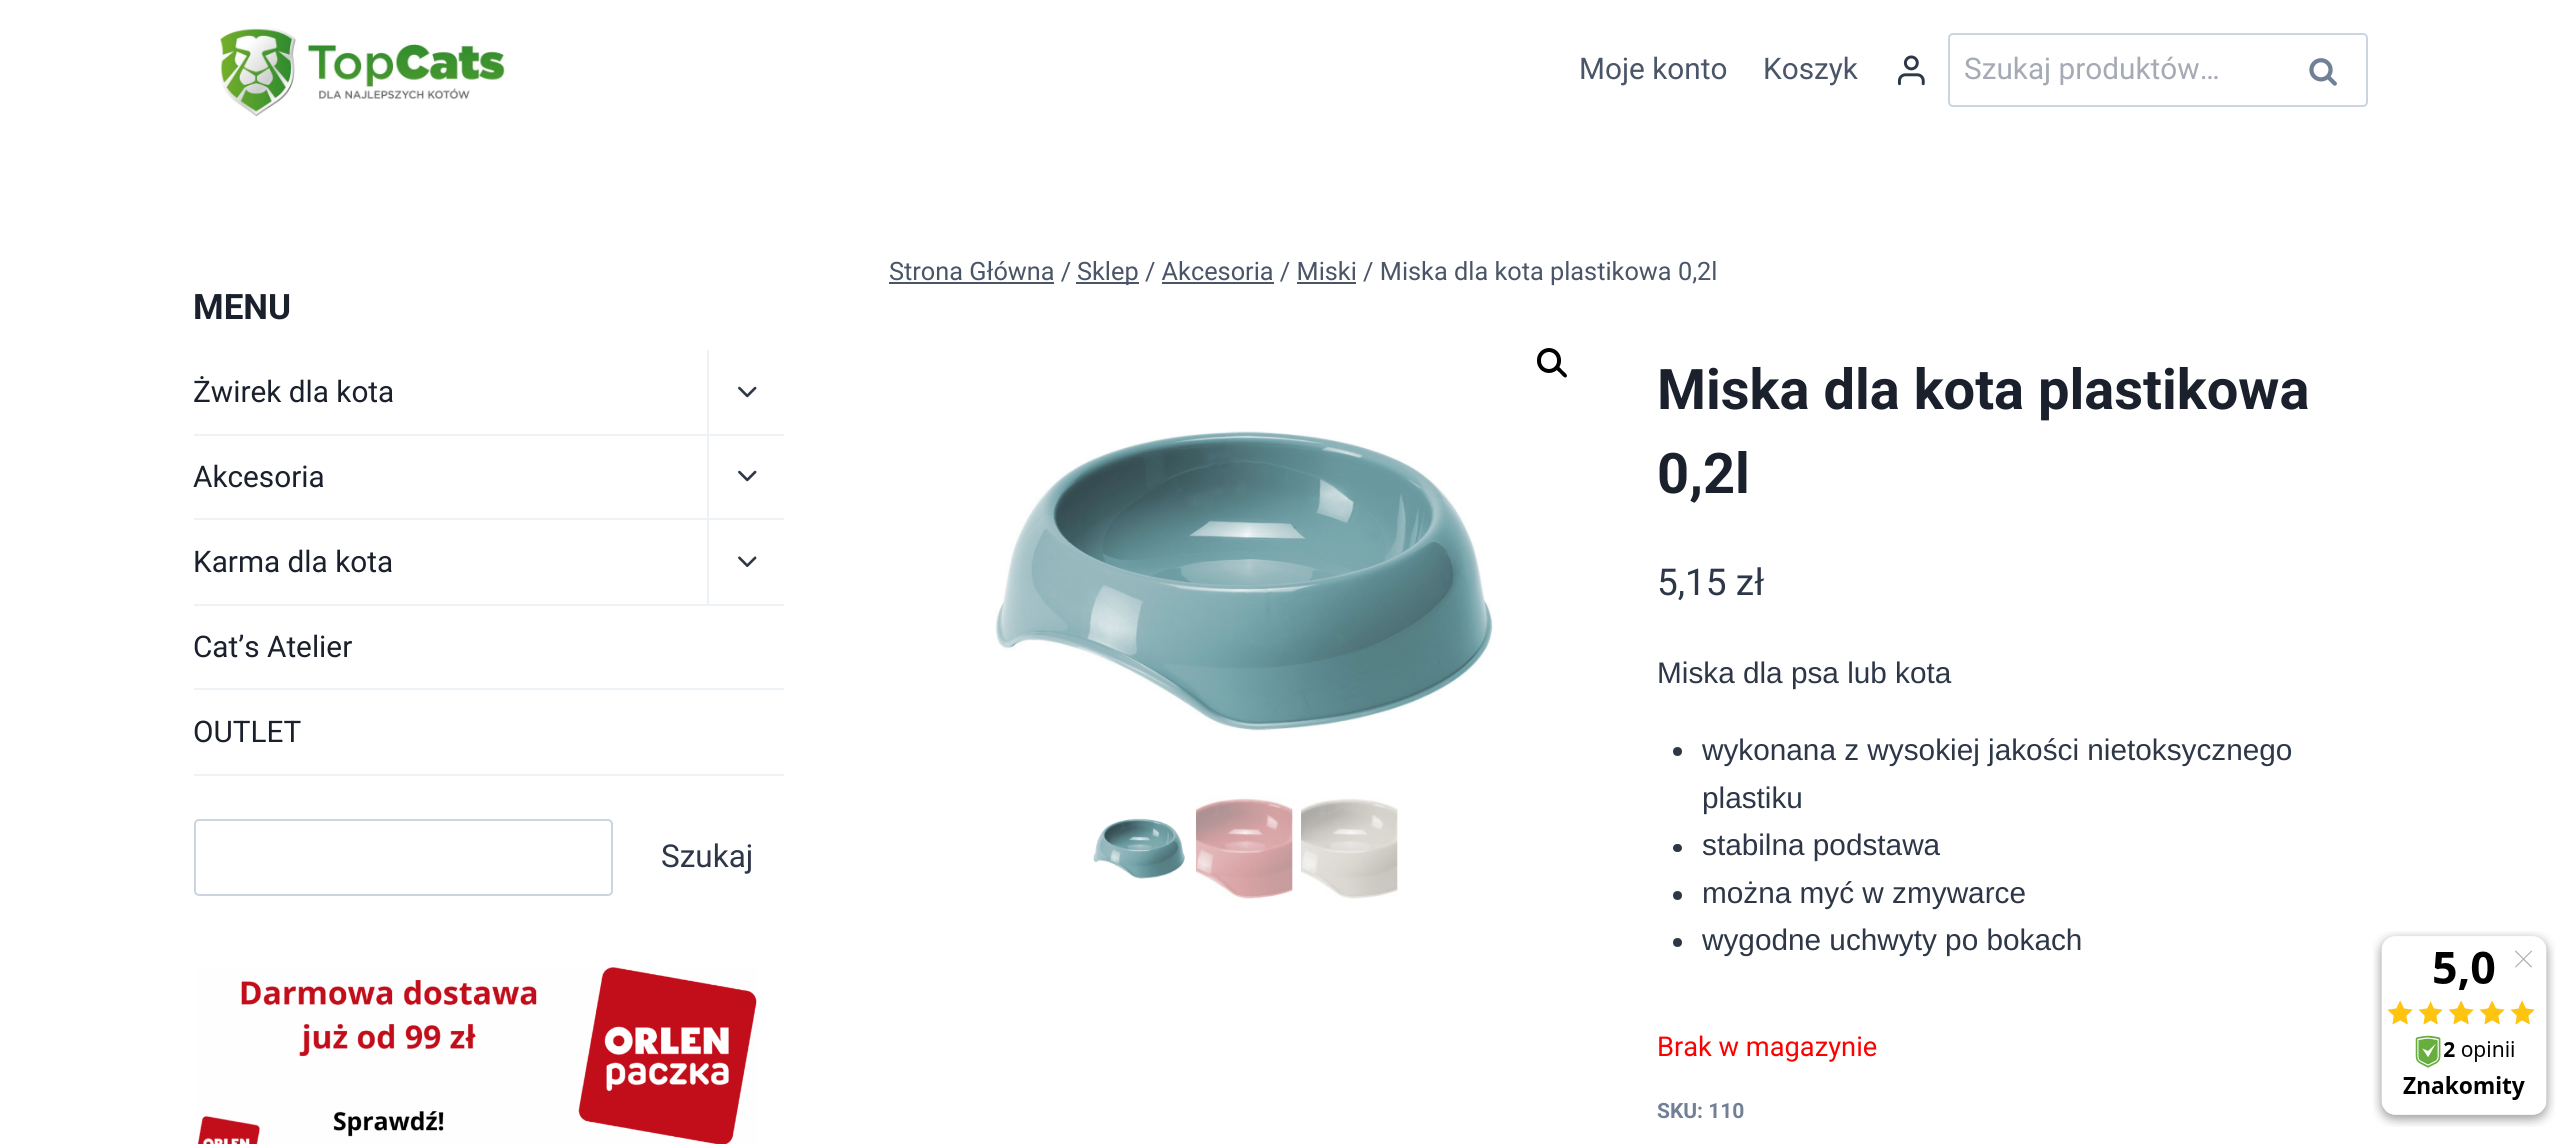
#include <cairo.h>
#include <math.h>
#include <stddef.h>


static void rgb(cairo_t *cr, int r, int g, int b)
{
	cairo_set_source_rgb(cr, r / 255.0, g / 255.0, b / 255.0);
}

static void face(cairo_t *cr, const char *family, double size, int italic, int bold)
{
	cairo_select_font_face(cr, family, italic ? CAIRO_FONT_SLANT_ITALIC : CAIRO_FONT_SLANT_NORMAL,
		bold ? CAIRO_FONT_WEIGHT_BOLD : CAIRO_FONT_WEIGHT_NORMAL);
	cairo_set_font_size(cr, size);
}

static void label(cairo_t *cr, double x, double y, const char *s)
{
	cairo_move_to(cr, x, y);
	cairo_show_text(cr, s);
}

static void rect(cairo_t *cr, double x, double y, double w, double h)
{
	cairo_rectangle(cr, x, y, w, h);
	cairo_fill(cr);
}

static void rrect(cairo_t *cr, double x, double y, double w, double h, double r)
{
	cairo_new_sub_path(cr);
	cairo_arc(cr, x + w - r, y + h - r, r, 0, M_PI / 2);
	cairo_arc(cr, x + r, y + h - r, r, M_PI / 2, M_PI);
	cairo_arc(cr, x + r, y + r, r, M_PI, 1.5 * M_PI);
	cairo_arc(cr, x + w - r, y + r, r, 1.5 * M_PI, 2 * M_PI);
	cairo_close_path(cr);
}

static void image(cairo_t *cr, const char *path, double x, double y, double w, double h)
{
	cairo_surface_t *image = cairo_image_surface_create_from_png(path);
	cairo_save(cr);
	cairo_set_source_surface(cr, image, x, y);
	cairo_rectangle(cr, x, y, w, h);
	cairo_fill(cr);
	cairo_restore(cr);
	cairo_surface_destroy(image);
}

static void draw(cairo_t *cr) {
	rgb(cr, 255, 255, 255);
	cairo_paint(cr);
	image(cr, "image0.png", 219, 28, 286, 89);
	face(cr, "Roboto", 29.75, 0, 0);
	rgb(cr, 74, 85, 104);
	label(cr, 1579, 79, "Moje konto");
	label(cr, 1763, 79, "Koszyk");
	image(cr, "image1.png", 1897, 55, 28, 31);
	rrect(cr, 1949, 34, 418, 72, 4);
	rgb(cr, 203, 213, 224);
	cairo_stroke(cr);
	rgb(cr, 165, 170, 180);
	label(cr, 1964, 79, "Szukaj produktów…");
	image(cr, "image2.png", 2309, 58, 28, 28);
	face(cr, "Roboto", 35, 0, 1);
	rgb(cr, 26, 32, 44);
	label(cr, 193, 319, "MENU");
	rgb(cr, 237, 242, 247);
	rect(cr, 194, 434, 590, 2);
	face(cr, "Roboto", 29.75, 0, 0);
	rgb(cr, 26, 32, 44);
	label(cr, 193, 402, "Żwirek dla kota");
	rgb(cr, 237, 242, 247);
	rect(cr, 707, 350, 2, 86);
	image(cr, "image3.png", 738, 386, 19, 12);
	rect(cr, 194, 518, 590, 2);
	rgb(cr, 26, 32, 44);
	label(cr, 193, 487, "Akcesoria");
	rgb(cr, 237, 242, 247);
	rect(cr, 707, 436, 2, 84);
	image(cr, "image3.png", 738, 470, 19, 12);
	rect(cr, 194, 604, 590, 2);
	rgb(cr, 26, 32, 44);
	label(cr, 193, 572, "Karma dla kota");
	rgb(cr, 237, 242, 247);
	rect(cr, 707, 520, 2, 86);
	image(cr, "image4.png", 738, 556, 19, 11);
	rect(cr, 194, 688, 590, 2);
	rgb(cr, 26, 32, 44);
	label(cr, 193, 657, "Cat’s Atelier");
	rgb(cr, 237, 242, 247);
	rect(cr, 194, 774, 590, 2);
	rgb(cr, 26, 32, 44);
	label(cr, 193, 742, "OUTLET");
	rrect(cr, 195, 820, 417, 75, 4);
	rgb(cr, 203, 213, 224);
	cairo_stroke(cr);
	face(cr, "Roboto", 31.5, 0, 0);
	rgb(cr, 45, 55, 72);
	label(cr, 661, 867, "Szukaj");
	image(cr, "image5.png", 197, 967, 560, 177);
	face(cr, "Roboto", 25.3, 0, 0);
	rgb(cr, 74, 85, 104);
	label(cr, 889, 280, "Strona Główna /");
	rect(cr, 889, 282, 165, 2);
	rect(cr, 1076, 282, 63, 2);
	label(cr, 1077, 280, "Sklep / Akcesoria / Miski / Miska dla kota plastikowa 0,2l");
	rect(cr, 1162, 282, 112, 2);
	rect(cr, 1297, 282, 59, 2);
	rrect(cr, 1539, 350, 20, 21, 10);
	rgb(cr, 0, 0, 0);
	cairo_set_line_width(cr, 4);
	cairo_stroke(cr);
	cairo_new_path(cr);
	cairo_move_to(cr, 1556.5, 367);
	cairo_curve_to(cr, 1558.5, 365, 1561.5, 369.5, 1562.5, 370.5);
	cairo_curve_to(cr, 1564, 372, 1568.5, 375, 1566.5, 377);
	cairo_curve_to(cr, 1564.5, 379, 1561.5, 374.5, 1560, 373);
	cairo_curve_to(cr, 1559, 372, 1554.5, 369, 1556.5, 367);
	cairo_close_path(cr);
	cairo_fill(cr);
	image(cr, "image6.png", 995, 431, 498, 300);
	image(cr, "image7.png", 1093, 818, 92, 61);
	image(cr, "image8.png", 1196, 796, 97, 104);
	image(cr, "image9.png", 1301, 798, 97, 101);
	face(cr, "Roboto", 56, 0, 1);
	rgb(cr, 26, 32, 44);
	label(cr, 1657, 409, "Miska dla kota plastikowa");
	label(cr, 1657, 493, "0,2l");
	face(cr, "Roboto", 37, 0, 0);
	rgb(cr, 45, 55, 72);
	label(cr, 1657, 595, "5,15 zł");
	face(cr, "Liberation Sans", 29.75, 0, 0);
	label(cr, 1657, 683, "Miska dla psa lub kota");
	cairo_new_path(cr);
	cairo_arc(cr, 1677.5, 751.5, 4.5, 0, 2 * M_PI);
	cairo_fill(cr);
	label(cr, 1702, 760, "wykonana z wysokiej jakości nietoksycznego");
	label(cr, 1702, 808, "plastiku");
	rrect(cr, 1673, 844, 9, 8, 4);
	cairo_fill(cr);
	label(cr, 1702, 855, "stabilna podstawa");
	cairo_new_path(cr);
	cairo_arc(cr, 1677.5, 895.5, 4.5, 0, 2 * M_PI);
	cairo_fill(cr);
	label(cr, 1702, 903, "można myć w zmywarce");
	cairo_new_path(cr);
	cairo_arc(cr, 1677.5, 942.5, 4.5, 0, 2 * M_PI);
	cairo_fill(cr);
	label(cr, 1702, 950, "wygodne uchwyty po bokach");
	face(cr, "Roboto", 27.25, 0, 0);
	rgb(cr, 255, 0, 0);
	label(cr, 1657, 1056, "Brak w magazynie");
	face(cr, "Roboto", 21, 0, 1);
	rgb(cr, 113, 128, 150);
	label(cr, 1657, 1118, "SKU: 110");
	image(cr, "image10.png", 2373, 931, 182, 196);
}

int main(void) {
	cairo_surface_t *surface = cairo_image_surface_create(CAIRO_FORMAT_RGB24, 2560, 1144);
	cairo_t *cr = cairo_create(surface);
	cairo_font_options_t *options = cairo_font_options_create();
	cairo_font_options_set_hint_metrics(options, CAIRO_HINT_METRICS_OFF);
	cairo_font_options_set_hint_style(options, CAIRO_HINT_STYLE_NONE);
	cairo_set_font_options(cr, options);
	cairo_set_miter_limit(cr, 4);
	draw(cr);
	cairo_surface_write_to_png(surface, "render.png");
	cairo_font_options_destroy(options);
	cairo_destroy(cr);
	cairo_surface_destroy(surface);
	return 0;
}
